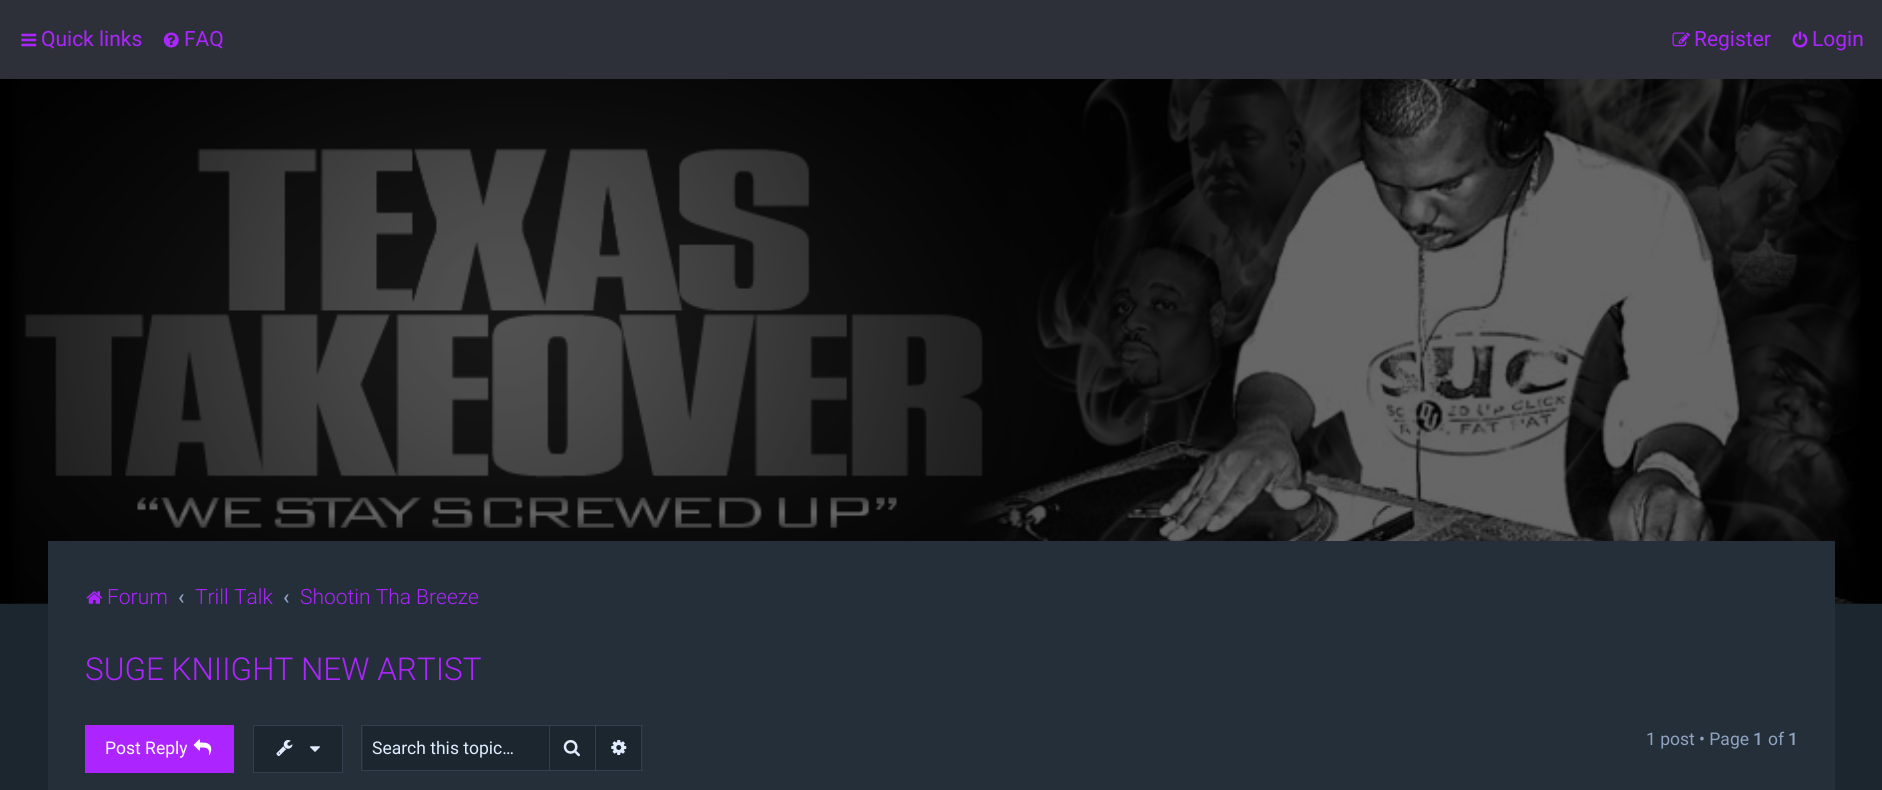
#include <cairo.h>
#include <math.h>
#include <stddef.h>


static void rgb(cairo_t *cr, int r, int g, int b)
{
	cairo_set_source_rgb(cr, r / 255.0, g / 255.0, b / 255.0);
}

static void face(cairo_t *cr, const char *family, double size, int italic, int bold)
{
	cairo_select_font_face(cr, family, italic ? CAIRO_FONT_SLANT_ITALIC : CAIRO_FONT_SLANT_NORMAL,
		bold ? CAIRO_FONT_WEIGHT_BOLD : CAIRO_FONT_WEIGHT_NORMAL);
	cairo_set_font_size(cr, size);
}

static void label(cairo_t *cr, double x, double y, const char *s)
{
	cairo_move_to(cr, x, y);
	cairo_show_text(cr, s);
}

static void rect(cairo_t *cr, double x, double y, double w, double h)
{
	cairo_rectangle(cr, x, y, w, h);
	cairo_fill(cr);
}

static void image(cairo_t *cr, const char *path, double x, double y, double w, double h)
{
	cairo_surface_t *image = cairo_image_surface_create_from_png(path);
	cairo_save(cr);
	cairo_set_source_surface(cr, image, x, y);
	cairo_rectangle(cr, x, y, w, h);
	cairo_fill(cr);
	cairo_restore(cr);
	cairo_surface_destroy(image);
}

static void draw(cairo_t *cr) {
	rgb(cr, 28, 38, 47);
	cairo_paint(cr);
	rgb(cr, 45, 48, 57);
	rect(cr, 0, 0, 1882, 79);
	image(cr, "image0.png", 21, 33, 16, 14);
	face(cr, "Roboto", 21, 0, 0);
	rgb(cr, 172, 36, 255);
	label(cr, 41, 46, "Quick links");
	image(cr, "image1.png", 163, 32, 16, 16);
	label(cr, 184, 46, "FAQ");
	image(cr, "image2.png", 1672, 32, 18, 15);
	label(cr, 1694, 46, "Register");
	image(cr, "image3.png", 1792, 31, 16, 17);
	label(cr, 1812, 46, "Login");
	image(cr, "image4.png", 0, 79, 1882, 525);
	rgb(cr, 1, 1, 1);
	rect(cr, 1600, 472, 1, 1);
	rgb(cr, 37, 47, 57);
	rect(cr, 48, 541, 1787, 249);
	image(cr, "image5.png", 86, 591, 17, 13);
	face(cr, "Roboto Light", 21, 0, 0);
	rgb(cr, 172, 36, 255);
	label(cr, 107, 604, "Forum");
	face(cr, "Roboto Medium", 21, 0, 0);
	rgb(cr, 144, 163, 192);
	label(cr, 178, 604, "‹");
	face(cr, "Roboto Light", 21, 0, 0);
	rgb(cr, 172, 36, 255);
	label(cr, 195, 604, "Trill Talk");
	face(cr, "Roboto Medium", 21, 0, 0);
	rgb(cr, 144, 163, 192);
	label(cr, 283, 604, "‹");
	face(cr, "Roboto Light", 21, 0, 0);
	rgb(cr, 172, 36, 255);
	label(cr, 300, 604, "Shootin Tha Breeze");
	face(cr, "Roboto Light", 31.5, 0, 0);
	label(cr, 85, 680, "SUGE KNIIGHT NEW ARTIST");
	rect(cr, 85, 725, 149, 48);
	face(cr, "Roboto", 17.5, 0, 0);
	rgb(cr, 255, 255, 255);
	label(cr, 105, 754, "Post Reply");
	image(cr, "image6.png", 193, 739, 19, 16);
	rgb(cr, 28, 38, 47);
	cairo_rectangle(cr, 253.5, 725.5, 89, 47);
	cairo_fill_preserve(cr);
	rgb(cr, 50, 63, 78);
	cairo_set_line_width(cr, 1);
	cairo_stroke(cr);
	image(cr, "image7.png", 276, 740, 17, 16);
	image(cr, "image8.png", 310, 746, 10, 6);
	rgb(cr, 28, 38, 47);
	rect(cr, 363, 726, 186, 44);
	rgb(cr, 50, 63, 78);
	rect(cr, 361, 725, 188, 1);
	rect(cr, 361, 770, 188, 1);
	rect(cr, 361, 725, 1, 46);
	rgb(cr, 225, 237, 255);
	label(cr, 372, 754, "Search this topic…");
	rgb(cr, 28, 38, 47);
	cairo_rectangle(cr, 549.5, 725.5, 46, 45);
	cairo_fill_preserve(cr);
	rgb(cr, 50, 63, 78);
	cairo_stroke(cr);
	image(cr, "image9.png", 563, 740, 17, 17);
	rgb(cr, 28, 38, 47);
	rect(cr, 596, 726, 45, 44);
	rgb(cr, 50, 63, 78);
	rect(cr, 596, 725, 47, 1);
	rect(cr, 641, 725, 1, 46);
	rect(cr, 596, 770, 47, 1);
	image(cr, "image10.png", 611, 740, 16, 15);
	rgb(cr, 144, 163, 192);
	label(cr, 1646, 745, "1 post • Page");
	face(cr, "Roboto Medium", 17.5, 0, 0);
	label(cr, 1753, 745, "1");
	face(cr, "Roboto", 17.5, 0, 0);
	label(cr, 1768, 745, "of");
	face(cr, "Roboto Medium", 17.5, 0, 0);
	label(cr, 1788, 745, "1");
}

int main(void) {
	cairo_surface_t *surface = cairo_image_surface_create(CAIRO_FORMAT_RGB24, 1882, 790);
	cairo_t *cr = cairo_create(surface);
	cairo_font_options_t *options = cairo_font_options_create();
	cairo_font_options_set_hint_metrics(options, CAIRO_HINT_METRICS_OFF);
	cairo_font_options_set_hint_style(options, CAIRO_HINT_STYLE_NONE);
	cairo_set_font_options(cr, options);
	cairo_set_miter_limit(cr, 4);
	draw(cr);
	cairo_surface_write_to_png(surface, "render.png");
	cairo_font_options_destroy(options);
	cairo_destroy(cr);
	cairo_surface_destroy(surface);
	return 0;
}
